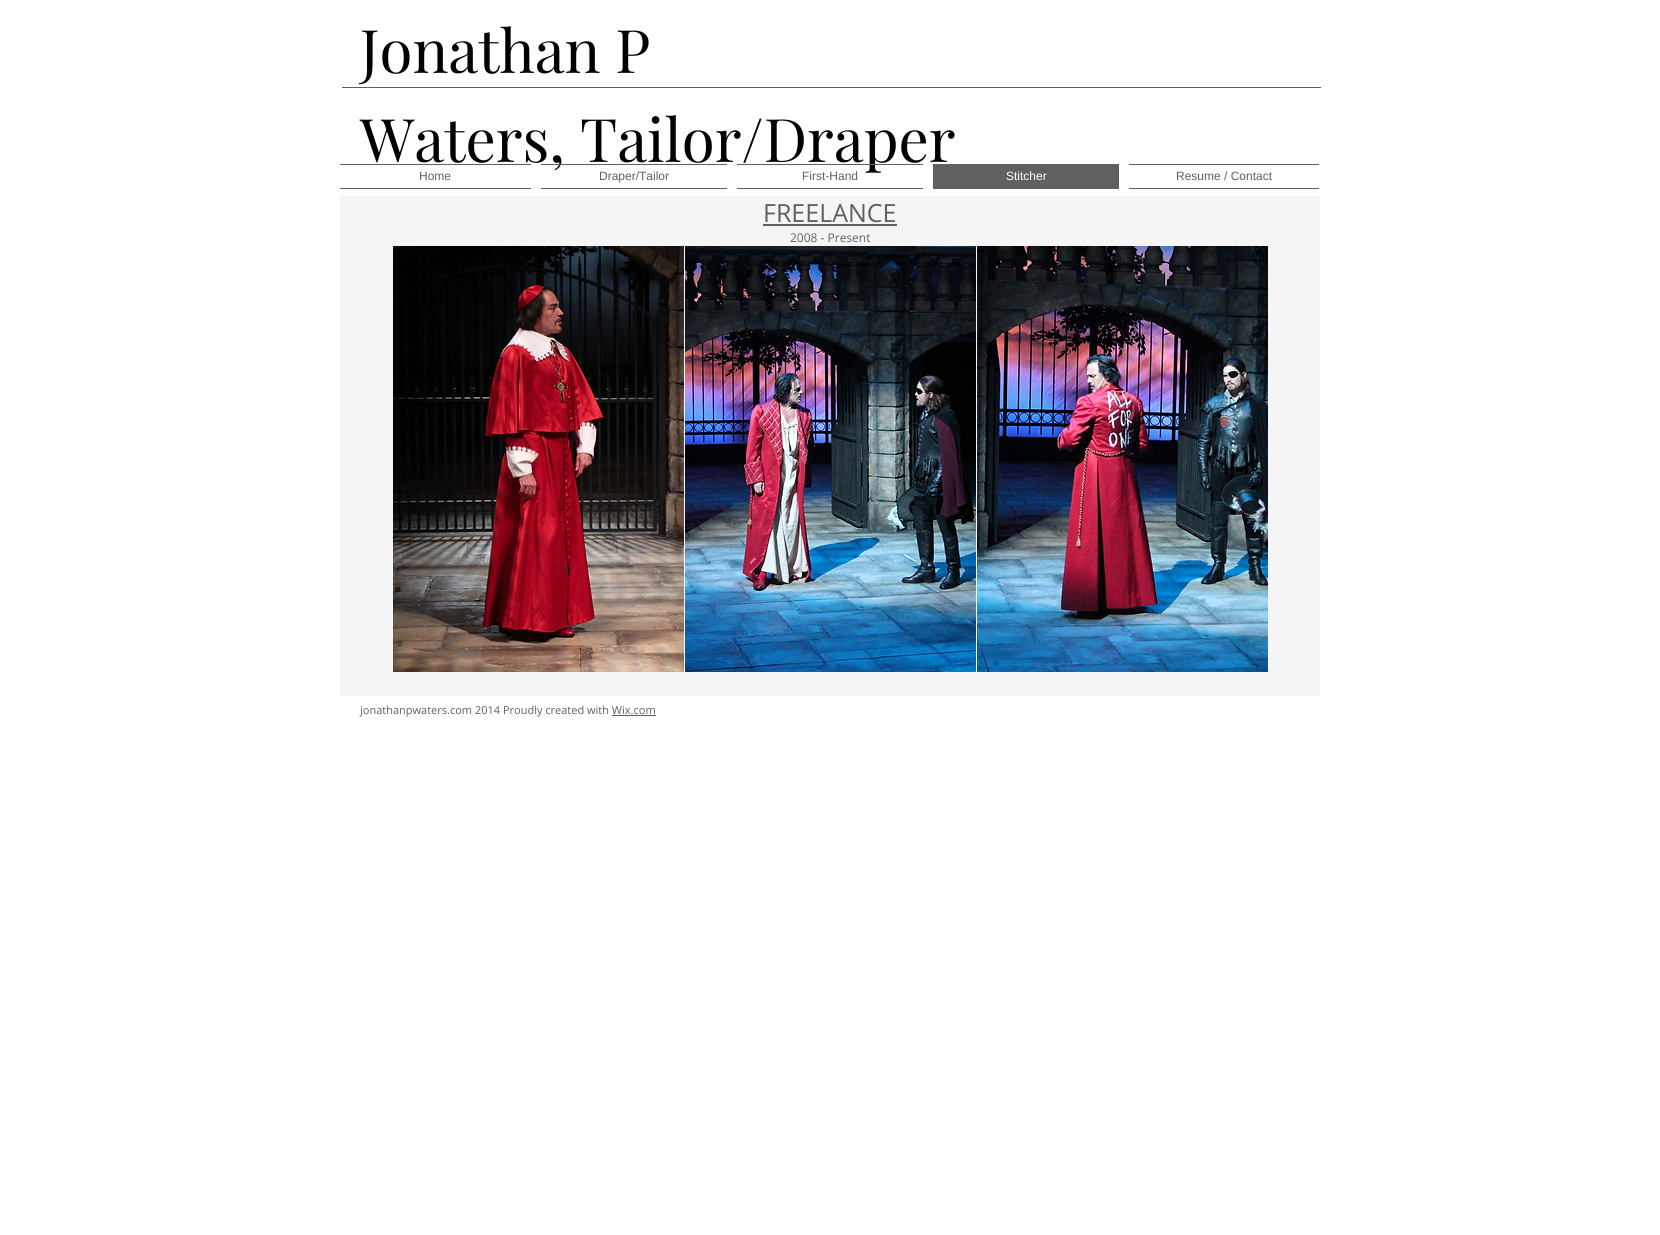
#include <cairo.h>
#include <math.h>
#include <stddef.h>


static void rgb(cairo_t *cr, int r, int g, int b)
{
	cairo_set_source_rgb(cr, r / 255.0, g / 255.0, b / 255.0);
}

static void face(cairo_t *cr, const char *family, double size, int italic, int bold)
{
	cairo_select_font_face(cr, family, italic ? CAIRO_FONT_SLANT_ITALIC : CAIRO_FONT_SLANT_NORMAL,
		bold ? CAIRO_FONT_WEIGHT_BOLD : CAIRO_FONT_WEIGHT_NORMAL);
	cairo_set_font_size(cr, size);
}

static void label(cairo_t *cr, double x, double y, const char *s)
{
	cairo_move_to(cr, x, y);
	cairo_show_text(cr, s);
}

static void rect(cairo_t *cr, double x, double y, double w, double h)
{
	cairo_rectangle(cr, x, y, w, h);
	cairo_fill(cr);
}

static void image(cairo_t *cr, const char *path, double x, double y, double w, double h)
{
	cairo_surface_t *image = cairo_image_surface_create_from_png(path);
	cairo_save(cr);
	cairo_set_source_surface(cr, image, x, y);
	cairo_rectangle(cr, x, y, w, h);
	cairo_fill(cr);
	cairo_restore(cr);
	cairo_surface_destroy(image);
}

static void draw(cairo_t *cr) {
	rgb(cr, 255, 255, 255);
	cairo_paint(cr);
	face(cr, "Playfair Display", 60, 0, 0);
	rgb(cr, 0, 0, 0);
	label(cr, 360, 73, "Jonathan P");
	label(cr, 360, 162, "Waters, Tailor/Draper");
	rgb(cr, 96, 96, 96);
	rect(cr, 342, 87, 979, 1);
	rect(cr, 340, 164, 191, 1);
	rect(cr, 340, 188, 191, 1);
	face(cr, "Liberation Sans", 12, 0, 0);
	label(cr, 419, 180, "Home");
	rect(cr, 541, 164, 186, 1);
	rect(cr, 541, 188, 186, 1);
	label(cr, 599, 180, "Draper/Tailor");
	rect(cr, 737, 164, 186, 1);
	rect(cr, 737, 188, 186, 1);
	label(cr, 802, 180, "First-Hand");
	rect(cr, 933, 164, 186, 25);
	rgb(cr, 255, 255, 255);
	label(cr, 1006, 180, "Stitcher");
	rgb(cr, 96, 96, 96);
	rect(cr, 1129, 164, 190, 1);
	rect(cr, 1129, 188, 190, 1);
	label(cr, 1176, 180, "Resume / Contact");
	rgb(cr, 245, 245, 245);
	rect(cr, 340, 196, 980, 500);
	face(cr, "Open Sans", 25, 0, 0);
	rgb(cr, 96, 96, 96);
	label(cr, 763, 222, "FREELANCE");
	rect(cr, 763, 224, 134, 2);
	face(cr, "Open Sans", 12, 0, 0);
	label(cr, 790, 242, "2008 - Present");
	image(cr, "image0.png", 393, 246, 291, 426);
	image(cr, "image1.png", 685, 246, 291, 426);
	image(cr, "image2.png", 977, 246, 291, 426);
	face(cr, "Open Sans", 11, 0, 0);
	label(cr, 360, 714, "jonathanpwaters.com 2014 Proudly created with Wix.com");
	rect(cr, 612, 715, 44, 1);
}

int main(void) {
	cairo_surface_t *surface = cairo_image_surface_create(CAIRO_FORMAT_RGB24, 1660, 1235);
	cairo_t *cr = cairo_create(surface);
	cairo_font_options_t *options = cairo_font_options_create();
	cairo_font_options_set_hint_metrics(options, CAIRO_HINT_METRICS_OFF);
	cairo_font_options_set_hint_style(options, CAIRO_HINT_STYLE_NONE);
	cairo_set_font_options(cr, options);
	cairo_set_miter_limit(cr, 4);
	draw(cr);
	cairo_surface_write_to_png(surface, "render.png");
	cairo_font_options_destroy(options);
	cairo_destroy(cr);
	cairo_surface_destroy(surface);
	return 0;
}
